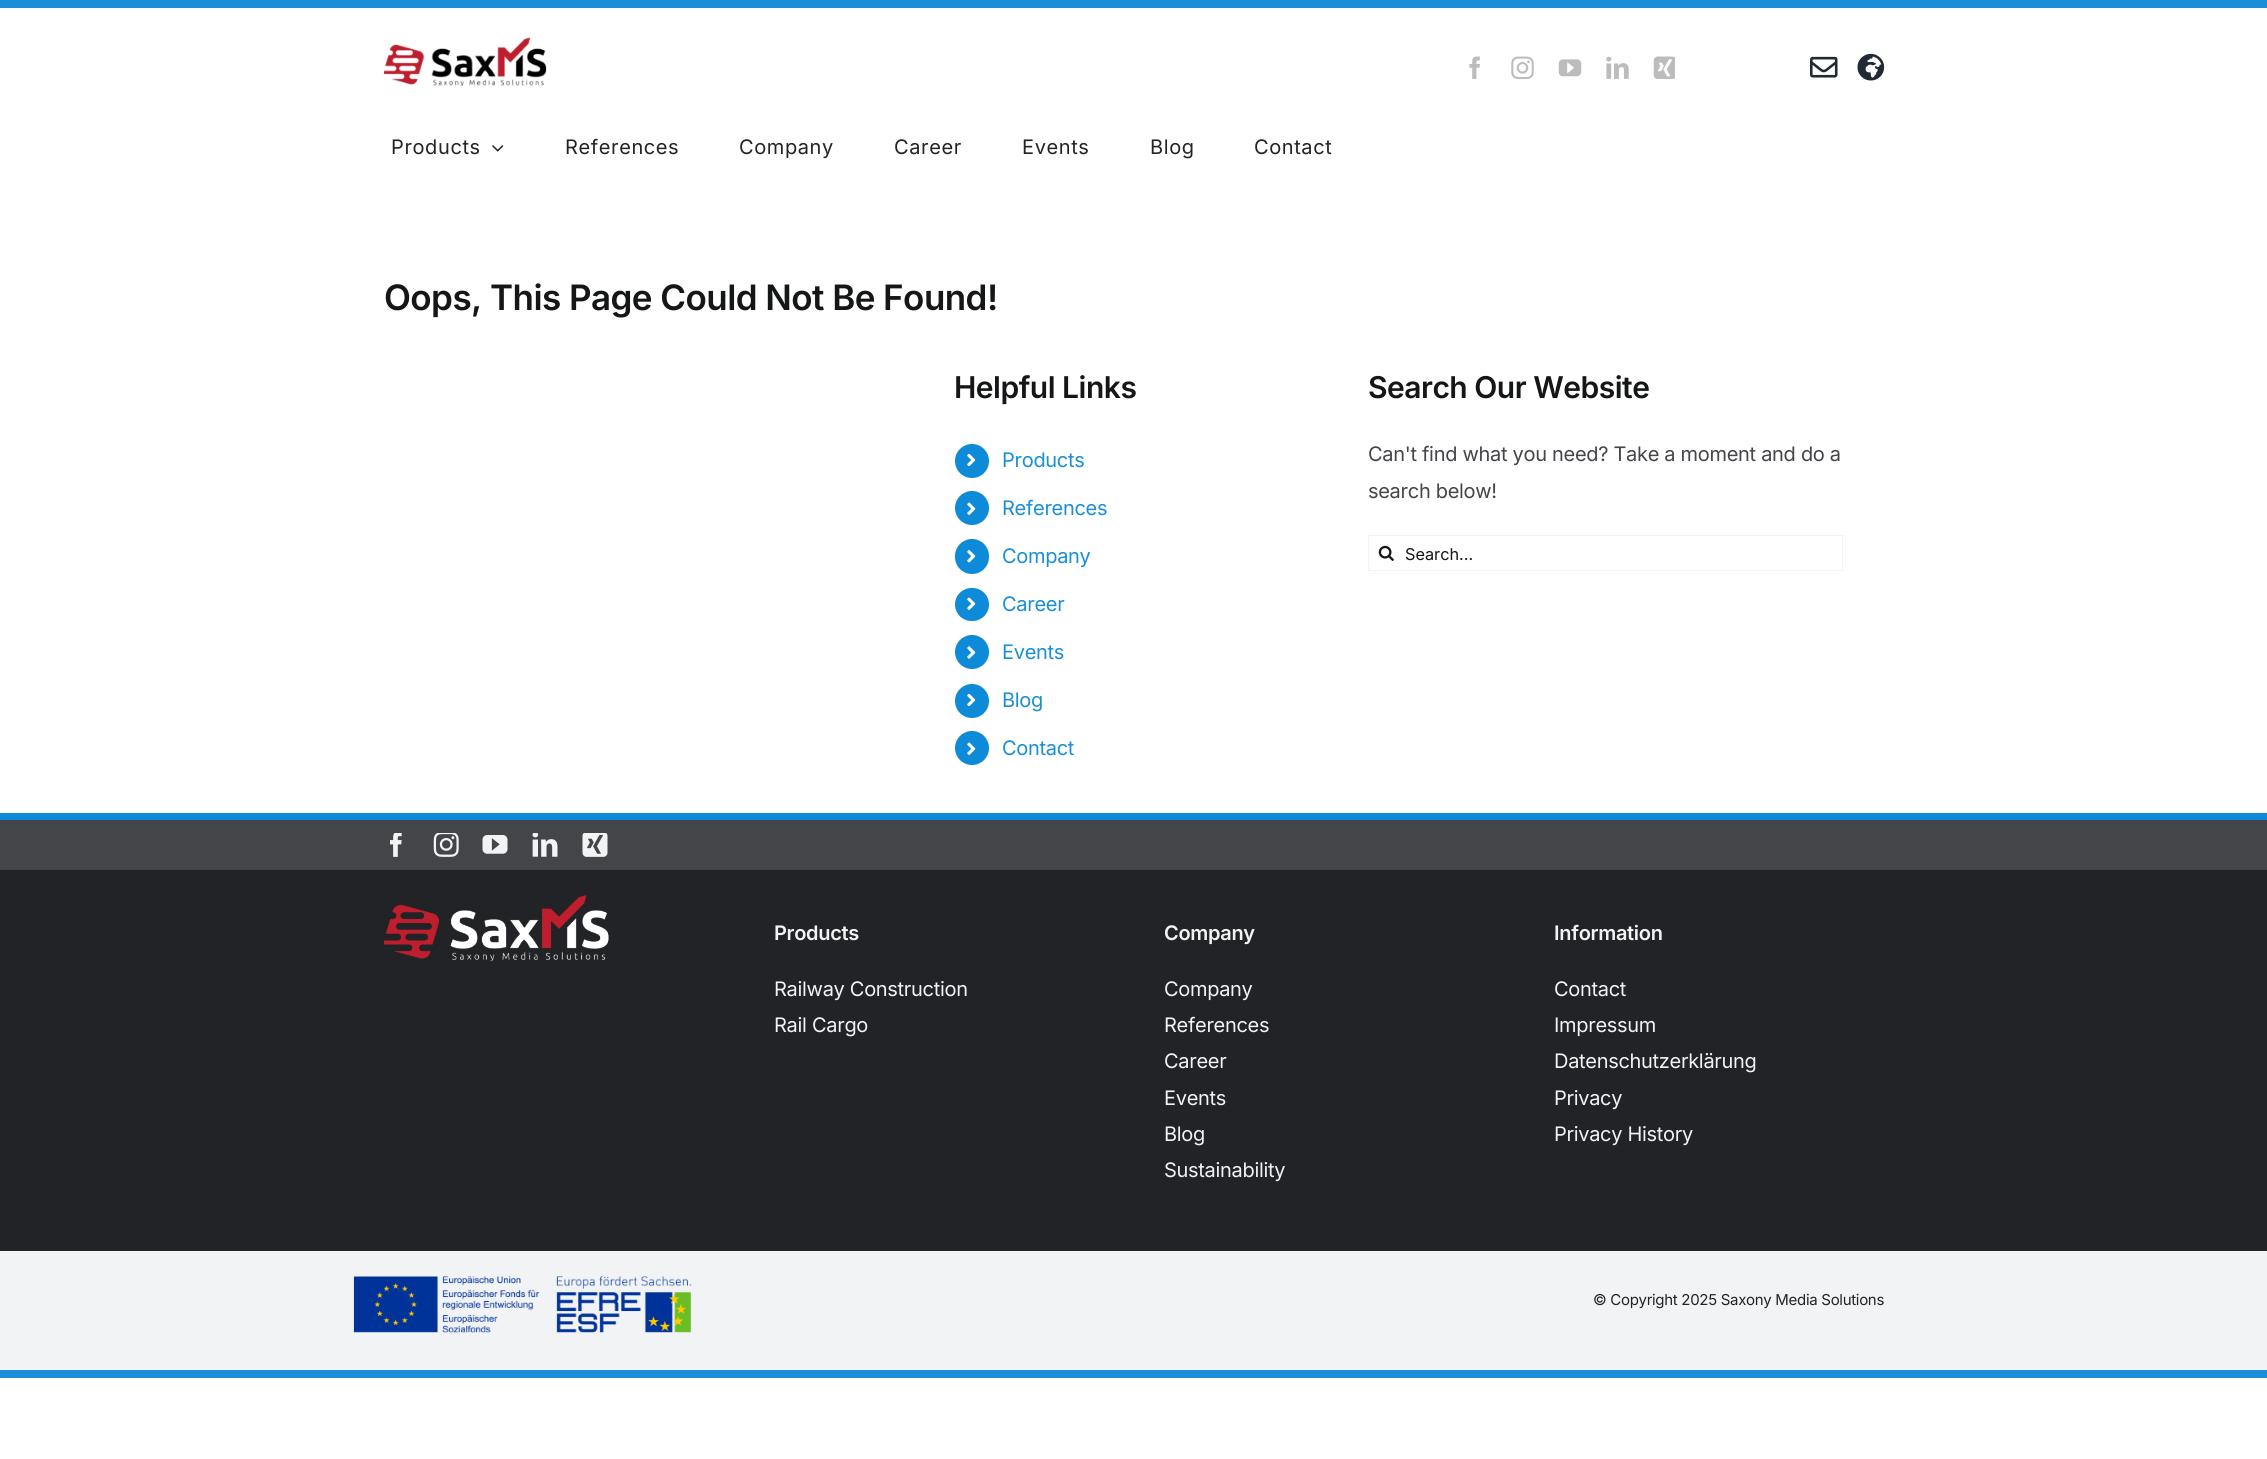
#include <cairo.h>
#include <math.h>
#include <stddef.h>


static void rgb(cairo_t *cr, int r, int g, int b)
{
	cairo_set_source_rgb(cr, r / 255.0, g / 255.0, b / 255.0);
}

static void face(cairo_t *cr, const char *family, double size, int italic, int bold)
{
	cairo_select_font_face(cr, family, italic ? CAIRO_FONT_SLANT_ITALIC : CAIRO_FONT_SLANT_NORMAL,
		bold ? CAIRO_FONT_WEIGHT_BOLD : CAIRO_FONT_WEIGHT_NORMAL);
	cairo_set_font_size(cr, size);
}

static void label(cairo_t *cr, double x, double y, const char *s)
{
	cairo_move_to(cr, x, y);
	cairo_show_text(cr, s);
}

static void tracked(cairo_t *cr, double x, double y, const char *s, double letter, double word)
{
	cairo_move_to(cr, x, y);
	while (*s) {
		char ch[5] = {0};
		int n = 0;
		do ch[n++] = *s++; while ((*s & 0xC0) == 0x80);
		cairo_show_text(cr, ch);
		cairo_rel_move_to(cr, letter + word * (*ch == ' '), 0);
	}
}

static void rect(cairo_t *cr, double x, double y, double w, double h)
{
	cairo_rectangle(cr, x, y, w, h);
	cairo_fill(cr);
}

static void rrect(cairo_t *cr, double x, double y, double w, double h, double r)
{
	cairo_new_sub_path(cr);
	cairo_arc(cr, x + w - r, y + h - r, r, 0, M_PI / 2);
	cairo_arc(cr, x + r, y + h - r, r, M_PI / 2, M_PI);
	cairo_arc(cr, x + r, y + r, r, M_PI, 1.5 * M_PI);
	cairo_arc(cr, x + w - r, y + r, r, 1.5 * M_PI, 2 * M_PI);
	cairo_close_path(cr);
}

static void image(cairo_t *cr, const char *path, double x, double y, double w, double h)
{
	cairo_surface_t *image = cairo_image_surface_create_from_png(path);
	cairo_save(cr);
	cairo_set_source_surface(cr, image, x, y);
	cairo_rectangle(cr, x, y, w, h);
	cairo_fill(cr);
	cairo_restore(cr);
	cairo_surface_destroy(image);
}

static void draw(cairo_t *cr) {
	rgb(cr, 255, 255, 255);
	cairo_paint(cr);
	rgb(cr, 25, 143, 217);
	rect(cr, 0, 0, 2267, 8);
	image(cr, "image0.png", 383, 37, 164, 50);
	image(cr, "image1.png", 1469, 56, 11, 23);
	image(cr, "image2.png", 1511, 56, 23, 23);
	image(cr, "image3.png", 1558, 59, 24, 18);
	image(cr, "image4.png", 1606, 56, 23, 23);
	image(cr, "image5.png", 1653, 56, 22, 23);
	image(cr, "image6.png", 1810, 56, 28, 22);
	image(cr, "image7.png", 1857, 53, 28, 28);
	face(cr, "Inter", 20, 0, 0);
	rgb(cr, 33, 35, 38);
	tracked(cr, 391, 154, "Products", 0.6, 0);
	image(cr, "image8.png", 492, 145, 12, 7);
	tracked(cr, 565, 154, "References", 0.6, 0);
	tracked(cr, 739, 154, "Company", 0.6, 0);
	tracked(cr, 894, 154, "Career", 0.6, 0);
	tracked(cr, 1022, 154, "Events", 0.6, 0);
	tracked(cr, 1150, 154, "Blog", 0.6, 0);
	tracked(cr, 1254, 154, "Contact", 0.6, 0);
	face(cr, "Inter SemiBold", 35, 0, 0);
	rgb(cr, 20, 22, 23);
	tracked(cr, 384, 310, "Oops, This Page Could Not Be Found!", -0.55, 0);
	face(cr, "Inter SemiBold", 30, 0, 0);
	tracked(cr, 954, 398, "Helpful Links", -0.5, 0);
	rgb(cr, 13, 138, 216);
	cairo_new_path(cr);
	cairo_arc(cr, 972, 461, 17, 0, 2 * M_PI);
	cairo_fill(cr);
	image(cr, "image9.png", 967, 453, 9, 14);
	face(cr, "Inter", 20, 0, 0);
	rgb(cr, 25, 143, 217);
	tracked(cr, 1002, 467, "Products", -0.3, 0);
	rgb(cr, 13, 138, 216);
	cairo_new_path(cr);
	cairo_arc(cr, 972, 508, 17, 0, 2 * M_PI);
	cairo_fill(cr);
	image(cr, "image10.png", 967, 502, 9, 13);
	rgb(cr, 25, 143, 217);
	tracked(cr, 1002, 515, "References", -0.3, 0);
	rgb(cr, 13, 138, 216);
	rrect(cr, 955, 539, 34, 35, 17);
	cairo_fill(cr);
	image(cr, "image11.png", 967, 550, 9, 13);
	rgb(cr, 25, 143, 217);
	tracked(cr, 1002, 563, "Company", -0.3, 0);
	rgb(cr, 13, 138, 216);
	rrect(cr, 955, 588, 34, 33, 16.5);
	cairo_fill(cr);
	image(cr, "image10.png", 967, 597, 9, 13);
	rgb(cr, 25, 143, 217);
	tracked(cr, 1002, 611, "Career", -0.3, 0);
	rgb(cr, 13, 138, 216);
	cairo_new_path(cr);
	cairo_arc(cr, 972, 652, 17, 0, 2 * M_PI);
	cairo_fill(cr);
	image(cr, "image12.png", 967, 646, 9, 13);
	rgb(cr, 25, 143, 217);
	tracked(cr, 1002, 659, "Events", -0.3, 0);
	rgb(cr, 13, 138, 216);
	cairo_new_path(cr);
	cairo_arc(cr, 972, 701, 17, 0, 2 * M_PI);
	cairo_fill(cr);
	image(cr, "image9.png", 967, 693, 9, 14);
	rgb(cr, 25, 143, 217);
	tracked(cr, 1002, 707, "Blog", -0.3, 0);
	rgb(cr, 13, 138, 216);
	cairo_new_path(cr);
	cairo_arc(cr, 972, 748, 17, 0, 2 * M_PI);
	cairo_fill(cr);
	image(cr, "image10.png", 967, 742, 9, 13);
	rgb(cr, 25, 143, 217);
	tracked(cr, 1002, 755, "Contact", -0.3, 0);
	face(cr, "Inter SemiBold", 30, 0, 0);
	rgb(cr, 20, 22, 23);
	tracked(cr, 1368, 398, "Search Our Website", -0.5, 0);
	face(cr, "Inter", 20, 0, 0);
	rgb(cr, 67, 69, 73);
	tracked(cr, 1368, 461, "Can't find what you need? Take a moment and do a", -0.3, 0);
	tracked(cr, 1368, 498, "search below!", -0.3, 0);
	cairo_rectangle(cr, 1368.5, 535.5, 474, 35);
	rgb(cr, 242, 243, 245);
	cairo_set_line_width(cr, 1);
	cairo_stroke(cr);
	image(cr, "image13.png", 1378, 545, 16, 16);
	face(cr, "Inter", 16.25, 0, 0);
	rgb(cr, 20, 22, 23);
	label(cr, 1405, 560, "Search...");
	rgb(cr, 67, 69, 73);
	rect(cr, 0, 820, 2267, 50);
	rgb(cr, 13, 138, 216);
	rect(cr, 0, 813, 2267, 7);
	image(cr, "image14.png", 390, 833, 12, 24);
	image(cr, "image15.png", 433, 833, 26, 24);
	image(cr, "image16.png", 482, 835, 26, 19);
	image(cr, "image17.png", 532, 833, 26, 24);
	image(cr, "image18.png", 582, 833, 26, 24);
	rgb(cr, 33, 35, 38);
	rect(cr, 0, 870, 2267, 381);
	image(cr, "image19.png", 383, 895, 226, 67);
	face(cr, "Inter SemiBold", 20, 0, 0);
	rgb(cr, 242, 243, 245);
	tracked(cr, 774, 940, "Products", -0.3, 0);
	face(cr, "Inter", 20, 0, 0);
	tracked(cr, 774, 996, "Railway Construction", -0.3, 0);
	tracked(cr, 774, 1032, "Rail Cargo", -0.3, 0);
	face(cr, "Inter SemiBold", 20, 0, 0);
	tracked(cr, 1164, 940, "Company", -0.3, 0);
	face(cr, "Inter", 20, 0, 0);
	tracked(cr, 1164, 996, "Company", -0.3, 0);
	tracked(cr, 1164, 1032, "References", -0.3, 0);
	tracked(cr, 1164, 1068, "Career", -0.3, 0);
	tracked(cr, 1164, 1105, "Events", -0.3, 0);
	tracked(cr, 1164, 1141, "Blog", -0.3, 0);
	tracked(cr, 1164, 1177, "Sustainability", -0.3, 0);
	face(cr, "Inter SemiBold", 20, 0, 0);
	tracked(cr, 1554, 940, "Information", -0.3, 0);
	face(cr, "Inter", 20, 0, 0);
	tracked(cr, 1554, 996, "Contact", -0.3, 0);
	tracked(cr, 1554, 1032, "Impressum", -0.3, 0);
	tracked(cr, 1554, 1068, "Datenschutzerklärung", -0.3, 0);
	tracked(cr, 1554, 1105, "Privacy", -0.3, 0);
	tracked(cr, 1554, 1141, "Privacy History", -0.3, 0);
	rect(cr, 0, 1251, 2267, 119);
	rgb(cr, 25, 143, 217);
	rect(cr, 0, 1370, 2267, 8);
	image(cr, "image20.png", 353, 1276, 339, 57);
	face(cr, "Inter", 15, 0, 0);
	rgb(cr, 33, 35, 38);
	tracked(cr, 1593, 1305, "© Copyright 2025 Saxony Media Solutions", -0.3, 0);
}

int main(void) {
	cairo_surface_t *surface = cairo_image_surface_create(CAIRO_FORMAT_RGB24, 2267, 1459);
	cairo_t *cr = cairo_create(surface);
	cairo_font_options_t *options = cairo_font_options_create();
	cairo_font_options_set_hint_metrics(options, CAIRO_HINT_METRICS_OFF);
	cairo_font_options_set_hint_style(options, CAIRO_HINT_STYLE_NONE);
	cairo_set_font_options(cr, options);
	cairo_set_miter_limit(cr, 4);
	draw(cr);
	cairo_surface_write_to_png(surface, "render.png");
	cairo_font_options_destroy(options);
	cairo_destroy(cr);
	cairo_surface_destroy(surface);
	return 0;
}
